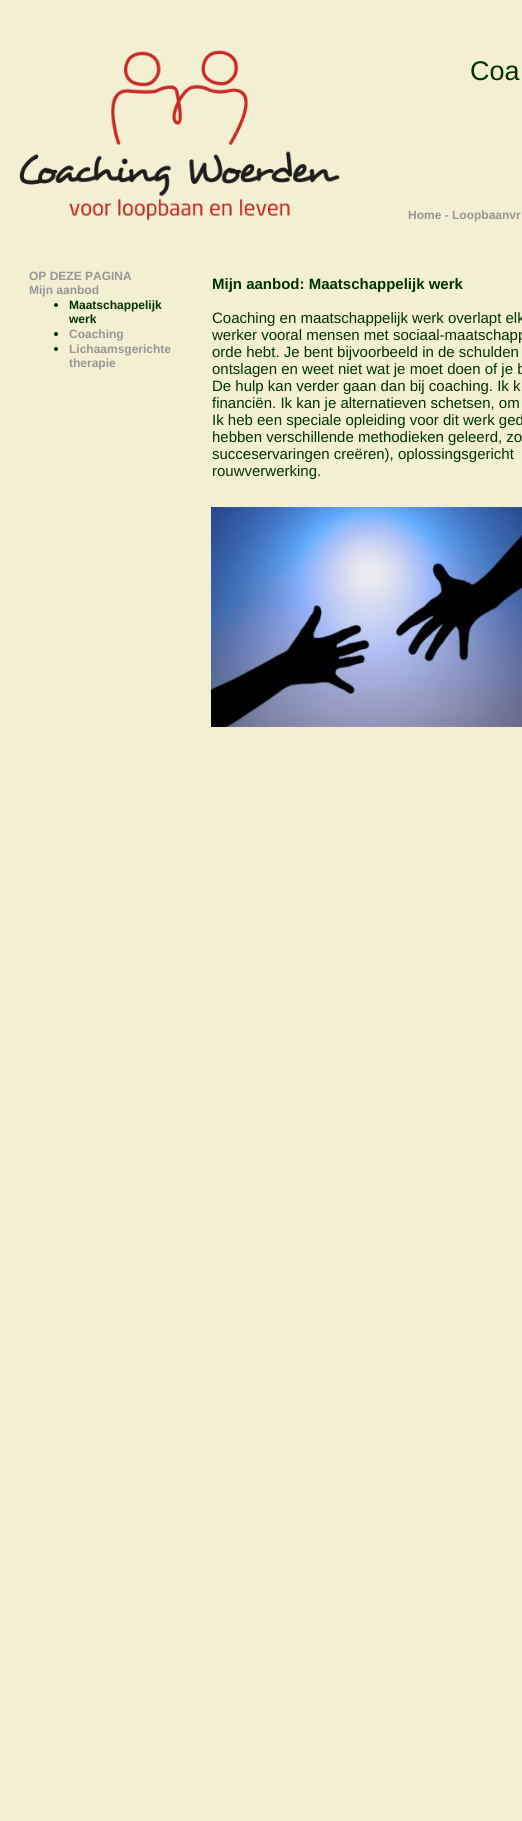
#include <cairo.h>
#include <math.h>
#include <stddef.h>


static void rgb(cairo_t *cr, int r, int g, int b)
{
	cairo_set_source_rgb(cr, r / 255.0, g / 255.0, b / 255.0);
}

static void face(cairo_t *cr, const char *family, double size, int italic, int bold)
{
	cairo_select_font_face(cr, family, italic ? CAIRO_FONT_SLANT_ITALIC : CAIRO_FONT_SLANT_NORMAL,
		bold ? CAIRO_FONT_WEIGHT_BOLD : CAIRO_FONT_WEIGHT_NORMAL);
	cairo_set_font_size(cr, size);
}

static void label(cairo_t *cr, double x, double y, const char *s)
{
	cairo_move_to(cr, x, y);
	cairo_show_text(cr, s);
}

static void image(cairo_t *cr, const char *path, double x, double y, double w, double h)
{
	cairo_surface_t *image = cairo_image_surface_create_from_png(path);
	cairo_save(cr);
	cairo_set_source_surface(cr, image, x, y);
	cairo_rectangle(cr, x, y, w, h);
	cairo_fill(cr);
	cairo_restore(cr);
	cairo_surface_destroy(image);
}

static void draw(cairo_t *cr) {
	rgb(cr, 242, 240, 208);
	cairo_paint(cr);
	image(cr, "image0.png", 19, 50, 321, 171);
	face(cr, "Liberation Sans", 27, 0, 0);
	rgb(cr, 0, 51, 0);
	label(cr, 470, 80, "Coa");
	face(cr, "Liberation Sans", 12, 0, 1);
	rgb(cr, 150, 150, 150);
	label(cr, 408, 219, "Home - Loopbaanvr");
	label(cr, 29, 280, "OP DEZE PAGINA");
	label(cr, 29, 294, "Mijn aanbod");
	rgb(cr, 0, 51, 0);
	cairo_new_path(cr);
	cairo_arc(cr, 56, 305, 2, 0, 2 * M_PI);
	cairo_fill(cr);
	label(cr, 69, 309, "Maatschappelijk");
	label(cr, 69, 323, "werk");
	cairo_new_path(cr);
	cairo_arc(cr, 56, 334, 2, 0, 2 * M_PI);
	cairo_fill(cr);
	rgb(cr, 150, 150, 150);
	label(cr, 69, 338, "Coaching");
	rgb(cr, 0, 51, 0);
	cairo_new_path(cr);
	cairo_arc(cr, 56, 349, 2, 0, 2 * M_PI);
	cairo_fill(cr);
	rgb(cr, 150, 150, 150);
	label(cr, 69, 353, "Lichaamsgerichte");
	label(cr, 69, 367, "therapie");
	face(cr, "Liberation Sans", 15, 0, 1);
	rgb(cr, 0, 51, 0);
	label(cr, 212, 289, "Mijn aanbod: Maatschappelijk werk");
	face(cr, "Liberation Sans", 15, 0, 0);
	label(cr, 212, 323, "Coaching en maatschappelijk werk overlapt elk");
	label(cr, 212, 340, "werker vooral mensen met sociaal-maatschapp");
	label(cr, 212, 357, "orde hebt. Je bent bijvoorbeeld in de schulden");
	label(cr, 212, 374, "ontslagen en weet niet wat je moet doen of je b");
	label(cr, 212, 391, "De hulp kan verder gaan dan bij coaching. Ik k");
	label(cr, 212, 408, "financiën. Ik kan je alternatieven schetsen, om");
	label(cr, 212, 425, "Ik heb een speciale opleiding voor dit werk ged");
	label(cr, 212, 442, "hebben verschillende methodieken geleerd, zo");
	label(cr, 212, 459, "succeservaringen creëren), oplossingsgericht");
	label(cr, 212, 476, "rouwverwerking.");
	image(cr, "image1.png", 211, 507, 311, 220);
}

int main(void) {
	cairo_surface_t *surface = cairo_image_surface_create(CAIRO_FORMAT_RGB24, 522, 1821);
	cairo_t *cr = cairo_create(surface);
	cairo_font_options_t *options = cairo_font_options_create();
	cairo_font_options_set_hint_metrics(options, CAIRO_HINT_METRICS_OFF);
	cairo_font_options_set_hint_style(options, CAIRO_HINT_STYLE_NONE);
	cairo_set_font_options(cr, options);
	cairo_set_miter_limit(cr, 4);
	draw(cr);
	cairo_surface_write_to_png(surface, "render.png");
	cairo_font_options_destroy(options);
	cairo_destroy(cr);
	cairo_surface_destroy(surface);
	return 0;
}
